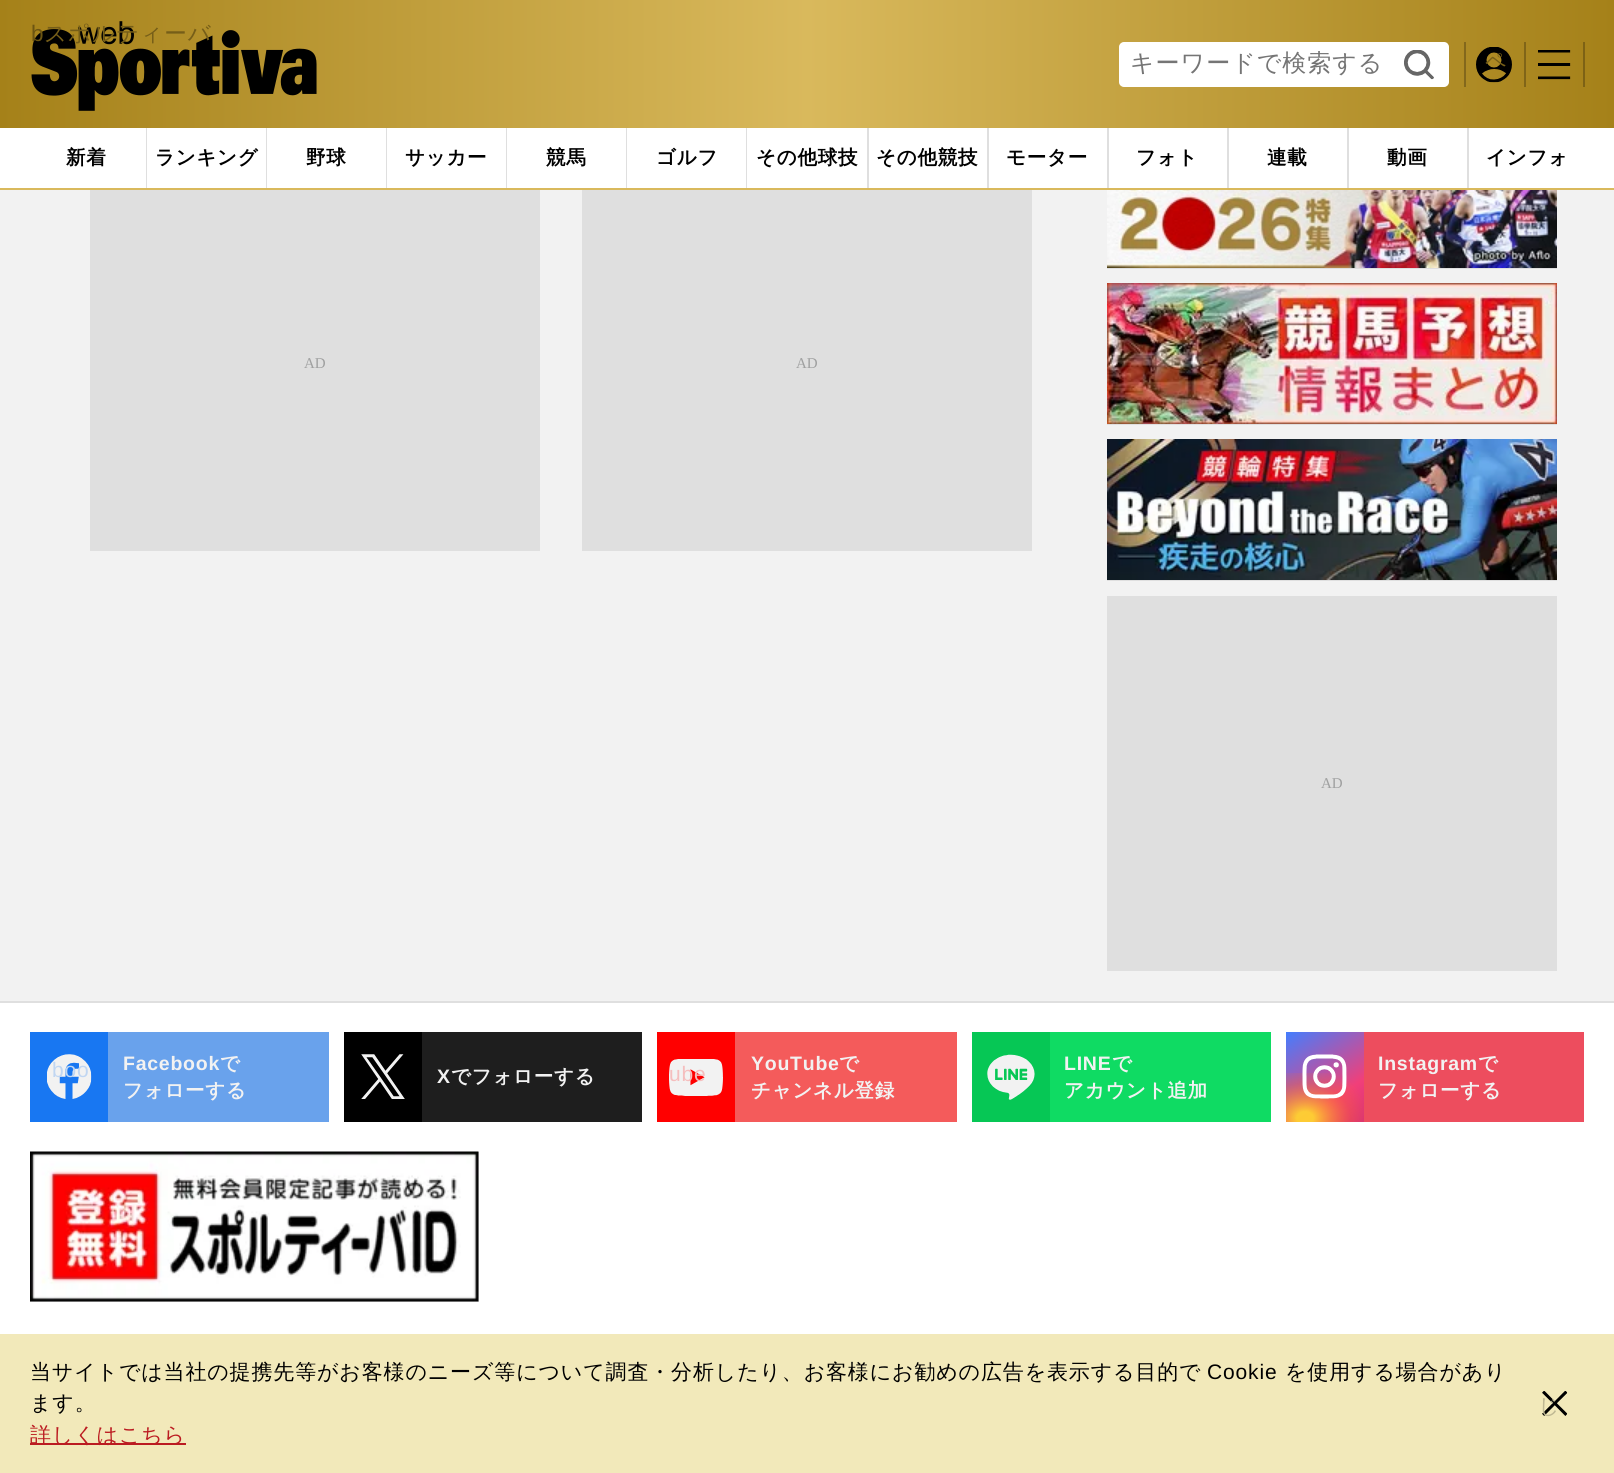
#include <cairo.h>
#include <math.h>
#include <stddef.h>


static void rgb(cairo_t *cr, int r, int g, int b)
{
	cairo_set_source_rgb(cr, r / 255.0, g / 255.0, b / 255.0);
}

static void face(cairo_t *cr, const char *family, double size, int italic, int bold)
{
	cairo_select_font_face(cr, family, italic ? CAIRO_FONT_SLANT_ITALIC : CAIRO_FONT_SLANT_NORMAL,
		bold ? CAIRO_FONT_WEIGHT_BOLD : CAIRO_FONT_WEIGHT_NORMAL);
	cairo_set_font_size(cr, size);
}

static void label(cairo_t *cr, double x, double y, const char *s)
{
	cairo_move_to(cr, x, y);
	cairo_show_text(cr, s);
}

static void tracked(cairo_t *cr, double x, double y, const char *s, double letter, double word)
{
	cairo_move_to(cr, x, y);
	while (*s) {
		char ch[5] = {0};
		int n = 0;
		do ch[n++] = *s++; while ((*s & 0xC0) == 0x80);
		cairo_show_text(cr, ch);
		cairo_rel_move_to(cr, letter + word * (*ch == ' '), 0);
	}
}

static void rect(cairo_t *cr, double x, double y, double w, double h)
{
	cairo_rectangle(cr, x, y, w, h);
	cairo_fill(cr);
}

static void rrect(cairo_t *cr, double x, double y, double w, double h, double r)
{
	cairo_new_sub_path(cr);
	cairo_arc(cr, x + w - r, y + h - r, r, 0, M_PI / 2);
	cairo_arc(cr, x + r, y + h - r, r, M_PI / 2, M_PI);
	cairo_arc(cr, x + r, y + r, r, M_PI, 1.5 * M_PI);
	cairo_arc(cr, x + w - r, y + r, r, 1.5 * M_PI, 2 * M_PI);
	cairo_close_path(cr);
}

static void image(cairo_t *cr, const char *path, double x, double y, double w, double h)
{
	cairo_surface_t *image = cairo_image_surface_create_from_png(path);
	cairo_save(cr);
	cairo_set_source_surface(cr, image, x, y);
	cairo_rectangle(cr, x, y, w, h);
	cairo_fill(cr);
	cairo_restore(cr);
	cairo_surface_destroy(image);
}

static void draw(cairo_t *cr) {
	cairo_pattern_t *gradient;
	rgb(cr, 242, 242, 242);
	cairo_paint(cr);
	rgb(cr, 255, 255, 255);
	rect(cr, 0, 128, 1614, 60);
	gradient = cairo_pattern_create_linear(0, 64, 1614, 64);
	cairo_pattern_add_color_stop_rgba(gradient, 0, 0.647, 0.506, 0.098, 1);
	cairo_pattern_add_color_stop_rgba(gradient, 0.5, 0.851, 0.725, 0.361, 1);
	cairo_pattern_add_color_stop_rgba(gradient, 1, 0.647, 0.506, 0.098, 1);
	cairo_set_source(cr, gradient);
	cairo_pattern_destroy(gradient);
	rect(cr, 0, 0, 1614, 128);
	image(cr, "image0.png", 31, 21, 286, 90);
	face(cr, "Liberation Sans", 22.5, 0, 0);
	rgb(cr, 108, 85, 18);
	tracked(cr, 31, 41, "b", 1, 0);
	face(cr, "WenQuanYi Zen Hei Medium", 22.5, 0, 0);
	rgb(cr, 118, 94, 24);
	tracked(cr, 44, 41, "スポルティーバ", 1, 0);
	rgb(cr, 255, 255, 255);
	rrect(cr, 1120, 43, 328, 43, 4);
	cairo_fill_preserve(cr);
	cairo_stroke(cr);
	face(cr, "WenQuanYi Zen Hei Medium", 24, 0, 0);
	rgb(cr, 117, 117, 117);
	tracked(cr, 1130, 71, "キーワードで検索する", 1, 0);
	image(cr, "image1.png", 1404, 50, 30, 30);
	rgb(cr, 131, 104, 28);
	rect(cr, 1464, 42, 2, 45);
	image(cr, "image2.png", 1476, 47, 36, 36);
	face(cr, "WenQuanYi Zen Hei Medium", 21, 0, 0);
	rgb(cr, 118, 94, 24);
	tracked(cr, 1485, 68, "ペ", 0.85, 0);
	rgb(cr, 128, 101, 24);
	rect(cr, 1524, 42, 2, 45);
	image(cr, "image3.png", 1538, 50, 33, 30);
	rgb(cr, 125, 98, 21);
	rect(cr, 1583, 42, 2, 45);
	face(cr, "WenQuanYi Zen Hei", 19.5, 0, 1);
	rgb(cr, 0, 0, 0);
	tracked(cr, 66, 164, "新着", 0.75, 0);
	rgb(cr, 223, 223, 223);
	rect(cr, 146, 128, 1, 60);
	rgb(cr, 0, 0, 0);
	tracked(cr, 155, 164, "ランキング", 0.75, 0);
	rgb(cr, 223, 223, 223);
	rect(cr, 266, 128, 1, 60);
	rgb(cr, 0, 0, 0);
	tracked(cr, 306, 164, "野球", 0.75, 0);
	rgb(cr, 223, 223, 223);
	rect(cr, 386, 128, 1, 60);
	rgb(cr, 0, 0, 0);
	tracked(cr, 405, 164, "サッカー", 0.75, 0);
	rgb(cr, 223, 223, 223);
	rect(cr, 506, 128, 1, 60);
	rgb(cr, 0, 0, 0);
	tracked(cr, 546, 164, "競馬", 0.75, 0);
	rgb(cr, 223, 223, 223);
	rect(cr, 626, 128, 1, 60);
	rgb(cr, 0, 0, 0);
	tracked(cr, 656, 164, "ゴルフ", 0.75, 0);
	rgb(cr, 223, 223, 223);
	rect(cr, 746, 128, 1, 60);
	rgb(cr, 0, 0, 0);
	tracked(cr, 756, 164, "その他球技", 0.75, 0);
	rgb(cr, 223, 223, 223);
	rect(cr, 867, 128, 2, 60);
	rgb(cr, 0, 0, 0);
	tracked(cr, 876, 164, "その他競技", 0.75, 0);
	rgb(cr, 223, 223, 223);
	rect(cr, 987, 128, 2, 60);
	rgb(cr, 0, 0, 0);
	tracked(cr, 1006, 164, "モーター", 0.75, 0);
	rgb(cr, 223, 223, 223);
	rect(cr, 1107, 128, 2, 60);
	rgb(cr, 0, 0, 0);
	tracked(cr, 1136, 164, "フォト", 0.75, 0);
	rgb(cr, 223, 223, 223);
	rect(cr, 1227, 128, 2, 60);
	rgb(cr, 0, 0, 0);
	tracked(cr, 1267, 164, "連載", 0.75, 0);
	rgb(cr, 223, 223, 223);
	rect(cr, 1347, 128, 2, 60);
	rgb(cr, 0, 0, 0);
	tracked(cr, 1387, 164, "動画", 0.75, 0);
	rgb(cr, 223, 223, 223);
	rect(cr, 1467, 128, 2, 60);
	rgb(cr, 0, 0, 0);
	tracked(cr, 1486, 164, "インフォ", 0.75, 0);
	rgb(cr, 217, 185, 92);
	rect(cr, 0, 188, 1614, 2);
	rgb(cr, 242, 233, 186);
	rect(cr, 0, 1334, 1614, 139);
	face(cr, "WenQuanYi Zen Hei Medium", 21, 0, 0);
	rgb(cr, 0, 0, 0);
	tracked(cr, 30, 1379, "当サイトでは当社の提携先等がお客様のニーズ等について調査・分析したり、お客様にお勧めの広告を表⽰する⽬的で", 0.85, 0);
	face(cr, "Liberation Sans", 21, 0, 0);
	tracked(cr, 1207, 1379, "Cookie", 0.85, 0);
	face(cr, "WenQuanYi Zen Hei Medium", 21, 0, 0);
	tracked(cr, 1285, 1379, "を使⽤する場合があり", 0.85, 0);
	tracked(cr, 30, 1410, "ます。", 0.85, 0);
	rgb(cr, 187, 27, 33);
	rect(cr, 30, 1443, 156, 2);
	tracked(cr, 30, 1442, "詳しくはこちら", 0.85, 0);
	image(cr, "image4.png", 1542, 1391, 26, 25);
	rgb(cr, 191, 184, 147);
	tracked(cr, 1538, 1413, "じ", 0.85, 0);
	rgb(cr, 223, 223, 223);
	rect(cr, 90, 190, 450, 361);
	face(cr, "Liberation Serif", 15, 0, 0);
	rgb(cr, 159, 160, 160);
	label(cr, 304, 368, "AD");
	rgb(cr, 223, 223, 223);
	rect(cr, 582, 190, 450, 361);
	rgb(cr, 159, 160, 160);
	label(cr, 796, 368, "AD");
	rgb(cr, 223, 223, 223);
	rect(cr, 1107, 268, 450, 1);
	image(cr, "image5.png", 1107, 190, 450, 78);
	rect(cr, 1107, 424, 450, 1);
	image(cr, "image6.png", 1107, 283, 450, 141);
	rect(cr, 1107, 580, 450, 1);
	image(cr, "image7.png", 1107, 439, 450, 141);
	rect(cr, 1107, 596, 450, 375);
	rgb(cr, 159, 160, 160);
	label(cr, 1321, 788, "AD");
	rgb(cr, 255, 255, 255);
	rect(cr, 0, 1003, 1614, 331);
	rgb(cr, 223, 223, 223);
	rect(cr, 0, 1001, 1614, 2);
	rgb(cr, 105, 162, 236);
	rect(cr, 108, 1032, 221, 90);
	rgb(cr, 24, 119, 242);
	rect(cr, 30, 1032, 78, 90);
	image(cr, "image8.png", 47, 1054, 45, 45);
	face(cr, "Liberation Sans", 21, 0, 0);
	rgb(cr, 192, 214, 242);
	tracked(cr, 52, 1077, "boo", 0.85, 0);
	face(cr, "Liberation Sans", 19.5, 0, 1);
	rgb(cr, 242, 242, 242);
	tracked(cr, 123, 1070, "Facebook", 0.75, 0);
	face(cr, "WenQuanYi Zen Hei", 19.5, 0, 1);
	tracked(cr, 220, 1070, "で", 0.75, 0);
	tracked(cr, 123, 1097, "フォローする", 0.75, 0);
	rgb(cr, 30, 30, 30);
	rect(cr, 422, 1032, 220, 90);
	rgb(cr, 0, 0, 0);
	rect(cr, 344, 1032, 78, 90);
	image(cr, "image9.png", 361, 1054, 44, 45);
	face(cr, "Liberation Sans", 19.5, 0, 1);
	rgb(cr, 242, 242, 242);
	tracked(cr, 437, 1083, "X", 0.75, 0);
	face(cr, "WenQuanYi Zen Hei", 19.5, 0, 1);
	tracked(cr, 451, 1083, "でフォローする", 0.75, 0);
	rgb(cr, 244, 91, 91);
	rect(cr, 735, 1032, 222, 90);
	rgb(cr, 255, 0, 0);
	rect(cr, 657, 1032, 78, 90);
	image(cr, "image10.png", 669, 1059, 54, 37);
	face(cr, "Liberation Sans", 21, 0, 0);
	rgb(cr, 245, 190, 190);
	tracked(cr, 669, 1081, "ube", 0.85, 0);
	face(cr, "Liberation Sans", 19.5, 0, 1);
	rgb(cr, 242, 242, 242);
	tracked(cr, 751, 1070, "YouTube", 0.75, 0);
	face(cr, "WenQuanYi Zen Hei", 19.5, 0, 1);
	tracked(cr, 839, 1070, "で", 0.75, 0);
	tracked(cr, 751, 1097, "チャンネル登録", 0.75, 0);
	rgb(cr, 15, 219, 99);
	rect(cr, 1050, 1032, 221, 90);
	rgb(cr, 6, 199, 85);
	rect(cr, 972, 1032, 78, 90);
	image(cr, "image11.png", 987, 1054, 48, 46);
	face(cr, "Liberation Sans", 19.5, 0, 1);
	rgb(cr, 242, 242, 242);
	tracked(cr, 1064, 1070, "LINE", 0.75, 0);
	face(cr, "WenQuanYi Zen Hei", 19.5, 0, 1);
	tracked(cr, 1112, 1070, "で", 0.75, 0);
	tracked(cr, 1064, 1097, "アカウント追加", 0.75, 0);
	rgb(cr, 237, 77, 94);
	rect(cr, 1364, 1032, 220, 90);
	gradient = cairo_pattern_create_linear(1291, 1028, 1358, 1126);
	cairo_pattern_add_color_stop_rgba(gradient, 0, 0.259, 0.494, 1, 1);
	cairo_pattern_add_color_stop_rgba(gradient, 0.7, 0.945, 0.247, 0.475, 1);
	cairo_pattern_add_color_stop_rgba(gradient, 1, 0.843, 0.188, 0.475, 1);
	cairo_set_source(cr, gradient);
	cairo_pattern_destroy(gradient);
	rect(cr, 1286, 1032, 78, 90);
	gradient = cairo_pattern_create_radial(0, 0, 0, 0, 0, 1);
	cairo_pattern_set_matrix(gradient, &(cairo_matrix_t){1.0 / 83, 0, 0, 1.0 / 64, -1.0 * 1305 / 83, -1.0 * 1118 / 64});
	cairo_pattern_add_color_stop_rgba(gradient, 0.1, 1, 0.859, 0.173, 0.9);
	cairo_pattern_add_color_stop_rgba(gradient, 0.55, 1, 0.412, 0.133, 0.3);
	cairo_pattern_add_color_stop_rgba(gradient, 0.8, 1, 0.412, 0.133, 0);
	cairo_set_source(cr, gradient);
	cairo_pattern_destroy(gradient);
	rect(cr, 1286, 1073, 78, 49);
	image(cr, "image12.png", 1302, 1054, 45, 45);
	face(cr, "Liberation Sans", 19.5, 0, 1);
	rgb(cr, 242, 242, 242);
	tracked(cr, 1378, 1070, "Instagram", 0.75, 0);
	face(cr, "WenQuanYi Zen Hei", 19.5, 0, 1);
	tracked(cr, 1478, 1070, "で", 0.75, 0);
	tracked(cr, 1378, 1097, "フォローする", 0.75, 0);
	rgb(cr, 223, 223, 223);
	rect(cr, 30, 1152, 449, 150);
	image(cr, "image13.png", 30, 1151, 449, 151);
}

int main(void) {
	cairo_surface_t *surface = cairo_image_surface_create(CAIRO_FORMAT_RGB24, 1614, 1473);
	cairo_t *cr = cairo_create(surface);
	cairo_font_options_t *options = cairo_font_options_create();
	cairo_font_options_set_hint_metrics(options, CAIRO_HINT_METRICS_OFF);
	cairo_font_options_set_hint_style(options, CAIRO_HINT_STYLE_NONE);
	cairo_set_font_options(cr, options);
	cairo_set_miter_limit(cr, 4);
	draw(cr);
	cairo_surface_write_to_png(surface, "render.png");
	cairo_font_options_destroy(options);
	cairo_destroy(cr);
	cairo_surface_destroy(surface);
	return 0;
}
